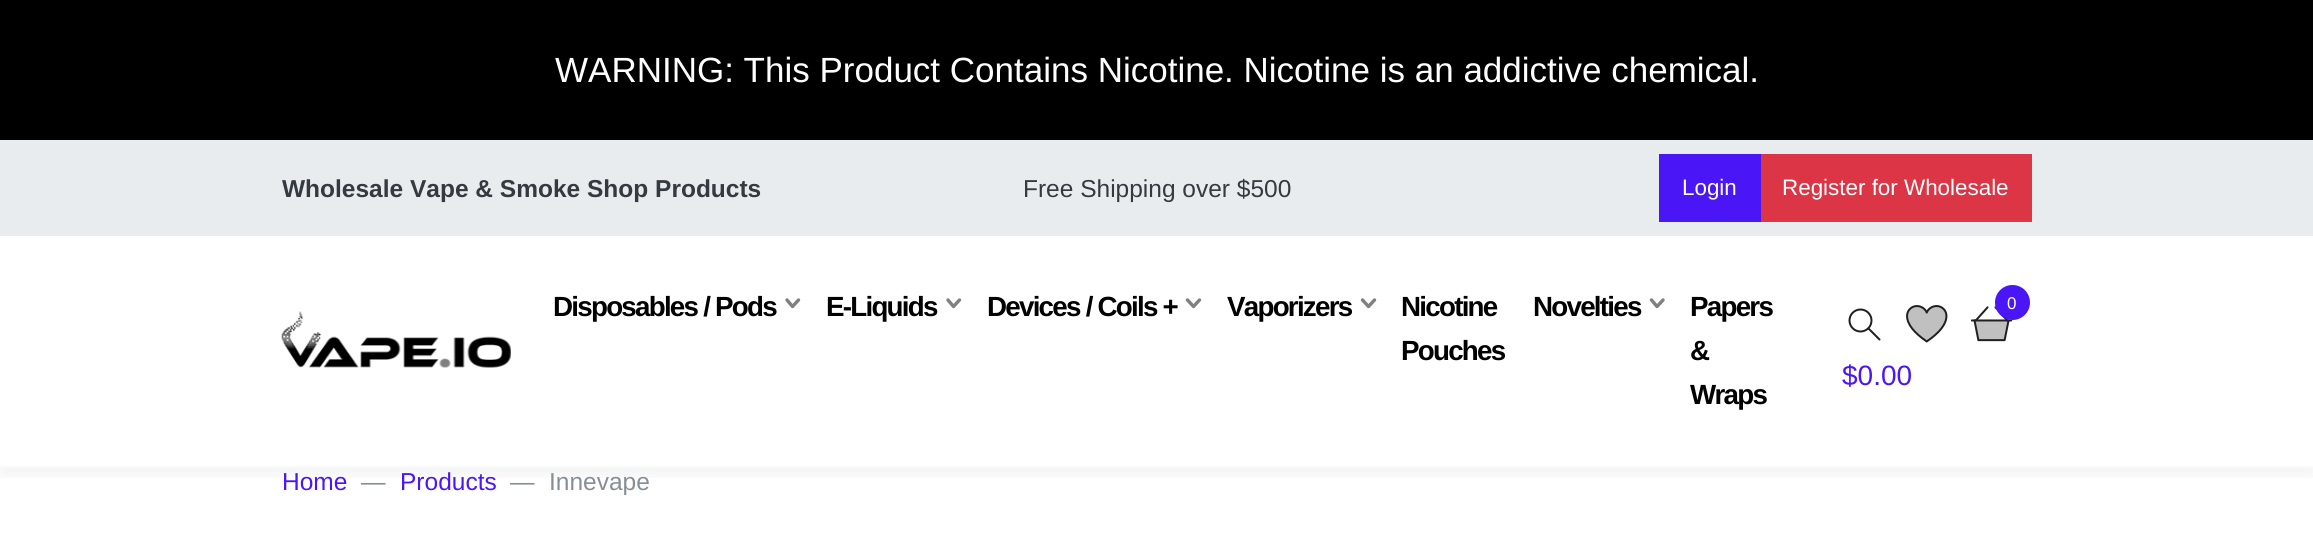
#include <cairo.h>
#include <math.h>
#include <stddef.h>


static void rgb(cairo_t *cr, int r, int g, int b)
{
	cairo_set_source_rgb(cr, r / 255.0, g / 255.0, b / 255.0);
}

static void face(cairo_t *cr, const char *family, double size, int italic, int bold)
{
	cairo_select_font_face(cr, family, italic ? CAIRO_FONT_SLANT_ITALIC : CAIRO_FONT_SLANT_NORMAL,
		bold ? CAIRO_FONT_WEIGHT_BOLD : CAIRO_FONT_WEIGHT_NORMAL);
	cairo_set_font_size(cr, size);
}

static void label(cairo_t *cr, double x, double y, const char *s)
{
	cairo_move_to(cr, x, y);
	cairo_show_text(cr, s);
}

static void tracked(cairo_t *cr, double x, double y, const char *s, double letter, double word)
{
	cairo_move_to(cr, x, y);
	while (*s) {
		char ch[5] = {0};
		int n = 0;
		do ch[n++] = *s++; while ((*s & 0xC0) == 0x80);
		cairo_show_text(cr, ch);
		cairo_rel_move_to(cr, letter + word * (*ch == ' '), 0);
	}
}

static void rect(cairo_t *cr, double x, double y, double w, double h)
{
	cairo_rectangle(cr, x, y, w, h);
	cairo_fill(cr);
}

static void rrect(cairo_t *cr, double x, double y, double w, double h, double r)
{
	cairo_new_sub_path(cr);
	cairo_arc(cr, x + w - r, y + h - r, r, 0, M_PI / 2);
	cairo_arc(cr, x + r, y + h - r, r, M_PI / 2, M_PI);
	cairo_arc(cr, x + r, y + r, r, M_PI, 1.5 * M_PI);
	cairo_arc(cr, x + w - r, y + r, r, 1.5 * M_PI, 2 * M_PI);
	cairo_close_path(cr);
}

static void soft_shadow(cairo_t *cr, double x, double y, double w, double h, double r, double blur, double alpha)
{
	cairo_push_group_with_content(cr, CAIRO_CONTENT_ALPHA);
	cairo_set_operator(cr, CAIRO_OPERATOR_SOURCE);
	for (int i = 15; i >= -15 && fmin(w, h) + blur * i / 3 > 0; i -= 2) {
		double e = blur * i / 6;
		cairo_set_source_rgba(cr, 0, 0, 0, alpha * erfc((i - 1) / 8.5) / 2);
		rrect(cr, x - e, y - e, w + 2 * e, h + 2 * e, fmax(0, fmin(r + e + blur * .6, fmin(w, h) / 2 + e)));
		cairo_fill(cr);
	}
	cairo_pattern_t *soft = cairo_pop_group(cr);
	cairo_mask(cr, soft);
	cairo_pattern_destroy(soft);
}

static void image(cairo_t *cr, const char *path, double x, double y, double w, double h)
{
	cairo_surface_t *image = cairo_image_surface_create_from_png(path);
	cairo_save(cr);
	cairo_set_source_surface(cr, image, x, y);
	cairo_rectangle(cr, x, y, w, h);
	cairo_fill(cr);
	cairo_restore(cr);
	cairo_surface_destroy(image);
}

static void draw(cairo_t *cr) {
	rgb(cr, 255, 255, 255);
	cairo_paint(cr);
	rgb(cr, 0, 0, 0);
	rect(cr, 0, 0, 2313, 140);
	face(cr, "Liberation Sans", 35, 0, 0);
	rgb(cr, 255, 255, 255);
	label(cr, 555, 82, "WARNING: This Product Contains Nicotine. Nicotine is an addictive chemical.");
	cairo_save(cr);
	cairo_rectangle(cr, 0, 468, 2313, 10);
	cairo_clip(cr);
	rgb(cr, 0, 0, 0);
	soft_shadow(cr, 0, 245, 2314, 231, 0, 9, 0.05);
	cairo_restore(cr);
	rgb(cr, 233, 236, 239);
	rect(cr, 0, 140, 2313, 96);
	face(cr, "Liberation Sans", 24.5, 0, 1);
	rgb(cr, 52, 58, 64);
	label(cr, 282, 197, "Wholesale Vape & Smoke Shop Products");
	face(cr, "Liberation Sans", 24.5, 0, 0);
	label(cr, 1023, 197, "Free Shipping over $500");
	rgb(cr, 74, 22, 246);
	rect(cr, 1659, 154, 102, 68);
	face(cr, "Liberation Sans", 22.4, 0, 0);
	rgb(cr, 255, 255, 255);
	label(cr, 1682, 195, "Login");
	rgb(cr, 220, 53, 69);
	rect(cr, 1761, 154, 271, 68);
	rgb(cr, 255, 255, 255);
	label(cr, 1782, 195, "Register for Wholesale");
	rgb(cr, 248, 249, 250);
	rect(cr, 0, 466, 2313, 2);
	image(cr, "image0.png", 281, 311, 230, 57);
	face(cr, "Liberation Sans", 27.75, 0, 1);
	rgb(cr, 0, 0, 0);
	tracked(cr, 553, 316, "Disposables / Pods", -1.75, 0);
	cairo_new_path(cr);
	cairo_move_to(cr, 787, 300);
	cairo_line_to(cr, 792.5, 306.5);
	cairo_line_to(cr, 798.5, 300);
	rgb(cr, 128, 128, 128);
	cairo_set_line_width(cr, 3.4);
	cairo_set_line_cap(cr, CAIRO_LINE_CAP_ROUND);
	cairo_set_line_join(cr, CAIRO_LINE_JOIN_ROUND);
	cairo_stroke(cr);
	rgb(cr, 0, 0, 0);
	tracked(cr, 826, 316, "E-Liquids", -1.75, 0);
	cairo_new_path(cr);
	cairo_move_to(cr, 948, 300);
	cairo_line_to(cr, 953.5, 306.5);
	cairo_line_to(cr, 959.5, 300);
	rgb(cr, 128, 128, 128);
	cairo_stroke(cr);
	rgb(cr, 0, 0, 0);
	tracked(cr, 987, 316, "Devices / Coils +", -1.75, 0);
	cairo_new_path(cr);
	cairo_move_to(cr, 1187.5, 300);
	cairo_line_to(cr, 1193.5, 306.5);
	cairo_line_to(cr, 1199.5, 300);
	rgb(cr, 128, 128, 128);
	cairo_stroke(cr);
	rgb(cr, 0, 0, 0);
	tracked(cr, 1227, 316, "Vaporizers", -1.75, 0);
	cairo_new_path(cr);
	cairo_move_to(cr, 1362.5, 300);
	cairo_line_to(cr, 1368.5, 306.5);
	cairo_line_to(cr, 1374.5, 300);
	rgb(cr, 128, 128, 128);
	cairo_stroke(cr);
	rgb(cr, 0, 0, 0);
	tracked(cr, 1401, 316, "Nicotine", -1.75, 0);
	tracked(cr, 1401, 360, "Pouches", -1.75, 0);
	tracked(cr, 1533, 316, "Novelties", -1.75, 0);
	cairo_new_path(cr);
	cairo_move_to(cr, 1651.5, 300);
	cairo_line_to(cr, 1657, 306.5);
	cairo_line_to(cr, 1663, 300);
	rgb(cr, 128, 128, 128);
	cairo_stroke(cr);
	rgb(cr, 0, 0, 0);
	tracked(cr, 1690, 316, "Papers", -1.75, 0);
	tracked(cr, 1690, 360, "&", -1.75, 0);
	tracked(cr, 1690, 404, "Wraps", -1.75, 0);
	image(cr, "image1.png", 1971, 306, 42, 36);
	rgb(cr, 74, 22, 246);
	cairo_arc(cr, 2012.5, 302.5, 17.5, 0, 2 * M_PI);
	cairo_fill(cr);
	face(cr, "Liberation Sans", 17, 0, 0);
	rgb(cr, 255, 255, 255);
	label(cr, 2007, 309, "0");
	cairo_new_path(cr);
	cairo_move_to(cr, 1868.5, 328.5);
	cairo_line_to(cr, 1879.5, 339.5);
	rgb(cr, 32, 32, 32);
	cairo_set_line_width(cr, 2);
	cairo_stroke(cr);
	cairo_arc(cr, 1860.5, 320.5, 11, 0, 2 * M_PI);
	cairo_set_line_cap(cr, CAIRO_LINE_CAP_BUTT);
	cairo_set_line_join(cr, CAIRO_LINE_JOIN_MITER);
	cairo_stroke(cr);
	image(cr, "image2.png", 1906, 305, 42, 38);
	face(cr, "Liberation Sans", 28, 0, 0);
	rgb(cr, 74, 22, 246);
	label(cr, 1842, 385, "$0.00");
	face(cr, "Liberation Sans", 24.5, 0, 0);
	label(cr, 282, 490, "Home");
	rgb(cr, 134, 142, 150);
	label(cr, 361, 490, "—");
	rgb(cr, 74, 22, 246);
	label(cr, 400, 490, "Products");
	rgb(cr, 134, 142, 150);
	label(cr, 510, 490, "—");
	label(cr, 549, 490, "Innevape");
}

int main(void) {
	cairo_surface_t *surface = cairo_image_surface_create(CAIRO_FORMAT_RGB24, 2313, 543);
	cairo_t *cr = cairo_create(surface);
	cairo_font_options_t *options = cairo_font_options_create();
	cairo_font_options_set_hint_metrics(options, CAIRO_HINT_METRICS_OFF);
	cairo_font_options_set_hint_style(options, CAIRO_HINT_STYLE_NONE);
	cairo_set_font_options(cr, options);
	cairo_set_miter_limit(cr, 4);
	draw(cr);
	cairo_surface_write_to_png(surface, "render.png");
	cairo_font_options_destroy(options);
	cairo_destroy(cr);
	cairo_surface_destroy(surface);
	return 0;
}
